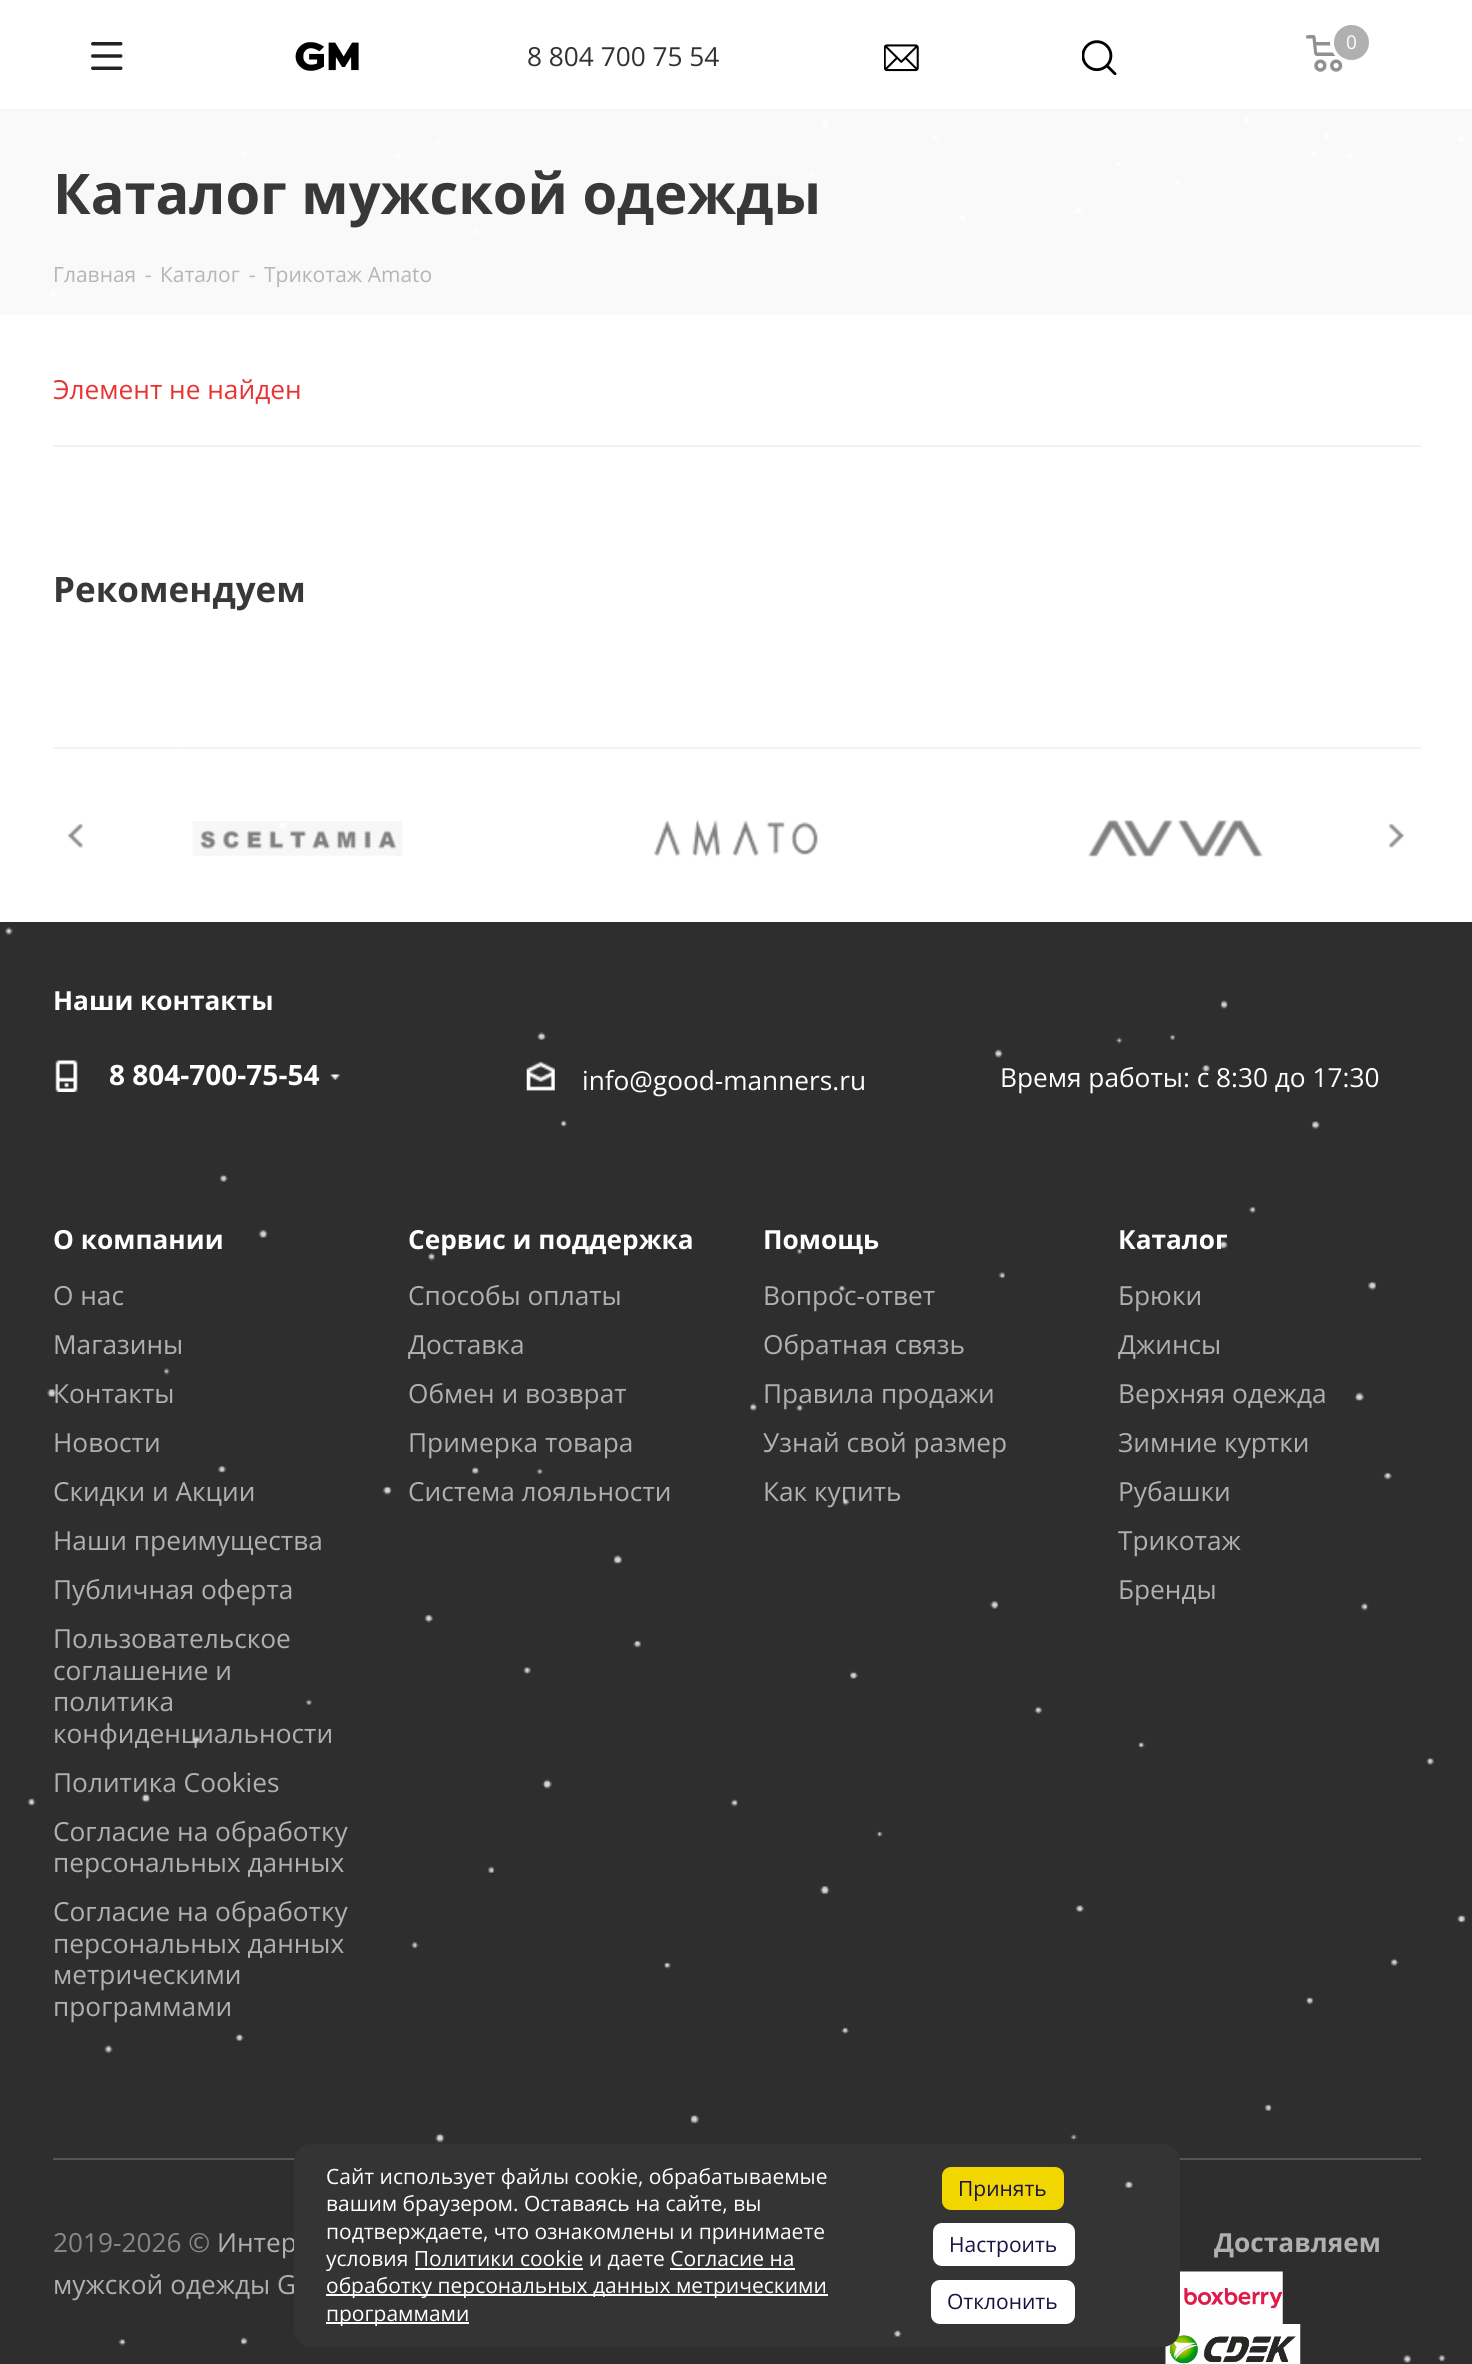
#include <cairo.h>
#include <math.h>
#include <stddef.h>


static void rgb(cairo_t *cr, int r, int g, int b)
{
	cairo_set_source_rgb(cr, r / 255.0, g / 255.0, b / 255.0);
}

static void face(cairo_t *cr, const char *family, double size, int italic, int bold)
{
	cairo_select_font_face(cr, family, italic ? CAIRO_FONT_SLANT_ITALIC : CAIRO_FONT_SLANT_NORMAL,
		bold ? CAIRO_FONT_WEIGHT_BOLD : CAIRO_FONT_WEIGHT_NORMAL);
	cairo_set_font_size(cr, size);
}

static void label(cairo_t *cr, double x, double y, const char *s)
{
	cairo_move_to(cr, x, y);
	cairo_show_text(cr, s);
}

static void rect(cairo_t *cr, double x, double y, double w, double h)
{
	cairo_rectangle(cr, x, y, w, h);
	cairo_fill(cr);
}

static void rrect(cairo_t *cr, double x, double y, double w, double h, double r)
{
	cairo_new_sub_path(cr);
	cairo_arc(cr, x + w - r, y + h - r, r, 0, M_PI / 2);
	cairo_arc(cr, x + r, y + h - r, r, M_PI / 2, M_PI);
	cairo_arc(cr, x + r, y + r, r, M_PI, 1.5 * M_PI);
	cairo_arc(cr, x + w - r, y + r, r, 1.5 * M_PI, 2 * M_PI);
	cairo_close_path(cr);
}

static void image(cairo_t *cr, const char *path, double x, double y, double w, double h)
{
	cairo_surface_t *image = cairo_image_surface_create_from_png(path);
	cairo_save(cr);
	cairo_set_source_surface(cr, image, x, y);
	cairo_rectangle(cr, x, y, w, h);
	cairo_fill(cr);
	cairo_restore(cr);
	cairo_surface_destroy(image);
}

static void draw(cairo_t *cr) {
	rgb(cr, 255, 255, 255);
	cairo_paint(cr);
	rgb(cr, 245, 245, 245);
	rect(cr, 0, 109, 1472, 1);
	image(cr, "image1.png", 91, 42, 32, 28);
	image(cr, "image2.png", 295, 42, 64, 29);
	face(cr, "Open Sans", 26.25, 0, 0);
	rgb(cr, 50, 50, 52);
	label(cr, 527, 66, "8 804 700 75 54");
	image(cr, "image3.png", 884, 44, 35, 28);
	image(cr, "image4.png", 1082, 40, 35, 35);
	image(cr, "image5.png", 1306, 35, 37, 37);
	cairo_arc(cr, 1351, 42, 19, 0, 2 * M_PI);
	rgb(cr, 255, 255, 255);
	cairo_set_line_width(cr, 4);
	cairo_stroke(cr);
	rgb(cr, 176, 176, 176);
	cairo_arc(cr, 1351.5, 42.5, 17.5, 0, 2 * M_PI);
	cairo_fill(cr);
	face(cr, "Open Sans", 19, 0, 0);
	rgb(cr, 255, 255, 255);
	label(cr, 1346, 49, "0");
	rgb(cr, 249, 249, 249);
	rect(cr, 0, 110, 1472, 205);
	face(cr, "Open Sans", 56, 0, 1);
	rgb(cr, 56, 56, 56);
	label(cr, 53, 214, "Каталог мужской одежды");
	face(cr, "Open Sans", 21, 0, 0);
	rgb(cr, 182, 181, 181);
	label(cr, 53, 282, "Главная");
	label(cr, 145, 282, "-");
	label(cr, 160, 282, "Каталог");
	label(cr, 249, 282, "-");
	label(cr, 264, 282, "Трикотаж Amato");
	face(cr, "Open Sans", 26.25, 0, 0);
	rgb(cr, 232, 51, 51);
	label(cr, 53, 399, "Элемент не найден");
	rgb(cr, 242, 242, 242);
	rect(cr, 53, 445, 1368, 2);
	face(cr, "Open Sans", 35, 0, 1);
	rgb(cr, 56, 56, 56);
	label(cr, 53, 602, "Рекомендуем");
	rgb(cr, 242, 242, 242);
	rect(cr, 53, 747, 1368, 2);
	image(cr, "image6.png", 192, 821, 211, 35);
	image(cr, "image7.png", 654, 819, 164, 38);
	image(cr, "image8.png", 1088, 820, 175, 37);
	image(cr, "image9.png", 67, 823, 16, 25);
	image(cr, "image10.png", 1389, 823, 15, 25);
	rgb(cr, 46, 46, 47);
	rect(cr, 0, 922, 1472, 1442);
	face(cr, "Open Sans", 26.25, 0, 1);
	rgb(cr, 255, 255, 255);
	label(cr, 53, 1010, "Наши контакты");
	image(cr, "image11.png", 55, 1060, 23, 32);
	face(cr, "Open Sans", 28, 0, 1);
	label(cr, 109, 1085, "8 804-700-75-54");
	image(cr, "image12.png", 330, 1074, 10, 6);
	image(cr, "image13.png", 526, 1061, 29, 30);
	face(cr, "Open Sans", 26.25, 0, 0);
	label(cr, 582, 1090, "info@good-manners.ru");
	label(cr, 1000, 1087, "Время работы: с 8:30 до 17:30");
	face(cr, "Open Sans", 26.25, 0, 1);
	label(cr, 53, 1249, "О компании");
	face(cr, "Open Sans", 26.25, 0, 0);
	rgb(cr, 176, 176, 176);
	label(cr, 53, 1305, "О нас");
	label(cr, 53, 1354, "Магазины");
	label(cr, 53, 1403, "Контакты");
	label(cr, 53, 1452, "Новости");
	label(cr, 53, 1501, "Скидки и Акции");
	label(cr, 53, 1550, "Наши преимущества");
	label(cr, 53, 1599, "Публичная оферта");
	label(cr, 53, 1648, "Пользовательское");
	label(cr, 53, 1680, "соглашение и");
	label(cr, 53, 1711, "политика");
	label(cr, 53, 1743, "конфиденциальности");
	label(cr, 53, 1792, "Политика Cookies");
	label(cr, 53, 1841, "Согласие на обработку");
	label(cr, 53, 1872, "персональных данных");
	label(cr, 53, 1921, "Согласие на обработку");
	label(cr, 53, 1953, "персональных данных");
	label(cr, 53, 1984, "метрическими");
	label(cr, 53, 2016, "программами");
	face(cr, "Open Sans", 26.25, 0, 1);
	rgb(cr, 255, 255, 255);
	label(cr, 408, 1249, "Сервис и поддержка");
	face(cr, "Open Sans", 26.25, 0, 0);
	rgb(cr, 176, 176, 176);
	label(cr, 408, 1305, "Способы оплаты");
	label(cr, 408, 1354, "Доставка");
	label(cr, 408, 1403, "Обмен и возврат");
	label(cr, 408, 1452, "Примерка товара");
	label(cr, 408, 1501, "Система лояльности");
	face(cr, "Open Sans", 26.25, 0, 1);
	rgb(cr, 255, 255, 255);
	label(cr, 763, 1249, "Помощь");
	face(cr, "Open Sans", 26.25, 0, 0);
	rgb(cr, 176, 176, 176);
	label(cr, 763, 1305, "Вопрос-ответ");
	label(cr, 763, 1354, "Обратная связь");
	label(cr, 763, 1403, "Правила продажи");
	label(cr, 763, 1452, "Узнай свой размер");
	label(cr, 763, 1501, "Как купить");
	face(cr, "Open Sans", 26.25, 0, 1);
	rgb(cr, 255, 255, 255);
	label(cr, 1118, 1249, "Каталог");
	face(cr, "Open Sans", 26.25, 0, 0);
	rgb(cr, 176, 176, 176);
	label(cr, 1118, 1305, "Брюки");
	label(cr, 1118, 1354, "Джинсы");
	label(cr, 1118, 1403, "Верхняя одежда");
	label(cr, 1118, 1452, "Зимние куртки");
	label(cr, 1118, 1501, "Рубашки");
	label(cr, 1118, 1550, "Трикотаж");
	label(cr, 1118, 1599, "Бренды");
	rgb(cr, 85, 85, 85);
	rect(cr, 53, 2158, 1368, 2);
	rgb(cr, 136, 136, 136);
	label(cr, 53, 2252, "2019-2026 ©");
	rgb(cr, 176, 176, 176);
	label(cr, 217, 2252, "Интер");
	label(cr, 53, 2294, "мужской одежды G");
	face(cr, "Open Sans", 26.25, 0, 1);
	label(cr, 1214, 2252, "Доставляем");
	image(cr, "image14.png", 1180, 2271, 103, 53);
	image(cr, "image15.png", 1165, 2324, 136, 40);
	rgb(cr, 52, 52, 53);
	rrect(cr, 294, 2144, 886, 203, 18);
	cairo_fill(cr);
	face(cr, "Open Sans", 21, 0, 0);
	rgb(cr, 255, 255, 255);
	label(cr, 326, 2184, "Сайт использует файлы cookie, обрабатываемые");
	label(cr, 326, 2211, "вашим браузером. Оставаясь на сайте, вы");
	label(cr, 326, 2239, "подтверждаете, что ознакомлены и принимаете");
	label(cr, 326, 2266, "условия Политики cookie и даете Согласие на");
	rect(cr, 415, 2268, 168, 2);
	rect(cr, 326, 2294, 502, 2);
	label(cr, 326, 2293, "обработку персональных данных метрическими");
	rect(cr, 670, 2268, 125, 2);
	rect(cr, 326, 2322, 143, 2);
	label(cr, 326, 2321, "программами");
	rgb(cr, 241, 214, 0);
	rrect(cr, 942, 2167, 122, 43, 9);
	cairo_fill(cr);
	rgb(cr, 23, 18, 65);
	label(cr, 958, 2196, "Принять");
	rgb(cr, 255, 255, 255);
	rrect(cr, 933, 2223, 142, 43, 9);
	cairo_fill(cr);
	rgb(cr, 23, 18, 65);
	label(cr, 949, 2252, "Настроить");
	rgb(cr, 255, 255, 255);
	rrect(cr, 931, 2280, 144, 44, 9);
	cairo_fill(cr);
	rgb(cr, 23, 18, 65);
	label(cr, 947, 2309, "Отклонить");
	image(cr, "image0.png", 5, 35, 1461, 2328);
}

int main(void) {
	cairo_surface_t *surface = cairo_image_surface_create(CAIRO_FORMAT_RGB24, 1472, 2364);
	cairo_t *cr = cairo_create(surface);
	cairo_font_options_t *options = cairo_font_options_create();
	cairo_font_options_set_hint_metrics(options, CAIRO_HINT_METRICS_OFF);
	cairo_font_options_set_hint_style(options, CAIRO_HINT_STYLE_NONE);
	cairo_set_font_options(cr, options);
	cairo_set_miter_limit(cr, 4);
	draw(cr);
	cairo_surface_write_to_png(surface, "render.png");
	cairo_font_options_destroy(options);
	cairo_destroy(cr);
	cairo_surface_destroy(surface);
	return 0;
}
